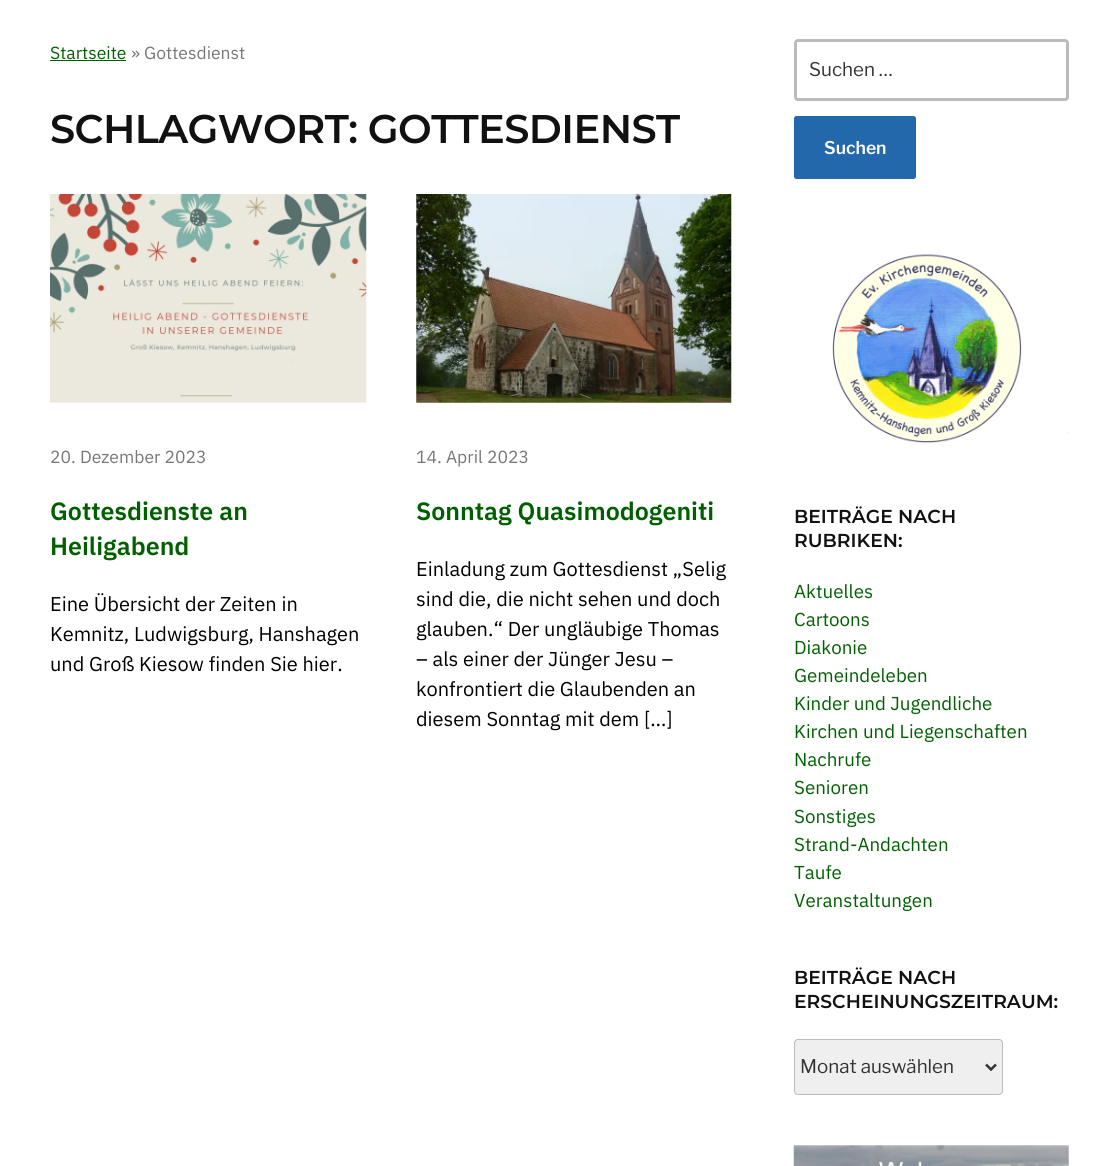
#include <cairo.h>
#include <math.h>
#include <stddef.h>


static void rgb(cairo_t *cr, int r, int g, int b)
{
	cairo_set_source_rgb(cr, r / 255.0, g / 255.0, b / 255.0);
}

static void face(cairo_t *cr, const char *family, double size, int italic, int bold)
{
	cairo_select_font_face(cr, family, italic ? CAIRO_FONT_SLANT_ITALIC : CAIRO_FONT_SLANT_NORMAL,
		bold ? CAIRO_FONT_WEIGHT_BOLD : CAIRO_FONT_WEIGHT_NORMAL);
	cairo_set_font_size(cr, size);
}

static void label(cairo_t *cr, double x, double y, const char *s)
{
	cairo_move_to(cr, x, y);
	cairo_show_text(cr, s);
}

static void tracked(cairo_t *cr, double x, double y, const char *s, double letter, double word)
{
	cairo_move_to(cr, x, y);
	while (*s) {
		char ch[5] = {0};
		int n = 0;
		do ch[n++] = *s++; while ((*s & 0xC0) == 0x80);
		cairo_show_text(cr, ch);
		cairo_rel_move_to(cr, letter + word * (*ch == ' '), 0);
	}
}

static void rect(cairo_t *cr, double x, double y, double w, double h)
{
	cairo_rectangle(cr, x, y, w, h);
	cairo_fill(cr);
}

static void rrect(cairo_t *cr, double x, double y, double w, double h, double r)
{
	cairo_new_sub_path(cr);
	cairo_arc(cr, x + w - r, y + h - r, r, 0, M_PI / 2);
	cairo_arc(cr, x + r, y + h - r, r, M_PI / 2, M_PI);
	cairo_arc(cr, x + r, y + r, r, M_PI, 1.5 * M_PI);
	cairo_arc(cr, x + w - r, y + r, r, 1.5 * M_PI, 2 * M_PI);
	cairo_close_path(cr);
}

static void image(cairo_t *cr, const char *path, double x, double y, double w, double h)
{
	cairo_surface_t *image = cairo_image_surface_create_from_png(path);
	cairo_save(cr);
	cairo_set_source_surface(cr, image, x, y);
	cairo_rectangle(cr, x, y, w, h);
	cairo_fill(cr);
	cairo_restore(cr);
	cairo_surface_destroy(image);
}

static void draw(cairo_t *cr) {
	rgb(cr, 255, 255, 255);
	cairo_paint(cr);
	face(cr, "IBM Plex Sans", 17.5, 0, 0);
	rgb(cr, 0, 96, 0);
	label(cr, 50, 59, "Startseite");
	rect(cr, 50, 60, 76, 1);
	rgb(cr, 119, 119, 119);
	label(cr, 131, 59, "» Gottesdienst");
	face(cr, "Montserrat SemiBold", 40, 0, 0);
	rgb(cr, 17, 17, 17);
	tracked(cr, 50, 143, "SCHLAGWORT: GOTTESDIENST", -0.6, 0);
	image(cr, "image0.png", 50, 194, 317, 209);
	face(cr, "IBM Plex Sans", 17.5, 0, 0);
	rgb(cr, 119, 119, 119);
	label(cr, 50, 463, "20. Dezember 2023");
	face(cr, "IBM Plex Sans SemiBold", 25, 0, 0);
	rgb(cr, 0, 96, 0);
	label(cr, 50, 520, "Gottesdienste an");
	label(cr, 50, 555, "Heiligabend");
	face(cr, "IBM Plex Sans", 20, 0, 0);
	rgb(cr, 0, 0, 0);
	label(cr, 50, 611, "Eine Übersicht der Zeiten in");
	label(cr, 50, 641, "Kemnitz, Ludwigsburg, Hanshagen");
	label(cr, 50, 671, "und Groß Kiesow finden Sie hier.");
	image(cr, "image1.png", 416, 194, 316, 209);
	face(cr, "IBM Plex Sans", 17.5, 0, 0);
	rgb(cr, 119, 119, 119);
	label(cr, 416, 463, "14. April 2023");
	face(cr, "IBM Plex Sans SemiBold", 25, 0, 0);
	rgb(cr, 0, 96, 0);
	label(cr, 416, 520, "Sonntag Quasimodogeniti");
	face(cr, "IBM Plex Sans", 20, 0, 0);
	rgb(cr, 0, 0, 0);
	label(cr, 416, 576, "Einladung zum Gottesdienst „Selig");
	label(cr, 416, 606, "sind die, die nicht sehen und doch");
	label(cr, 416, 636, "glauben.“ Der ungläubige Thomas");
	label(cr, 416, 666, "– als einer der Jünger Jesu –");
	label(cr, 416, 696, "konfrontiert die Glaubenden an");
	label(cr, 416, 726, "diesem Sonntag mit dem […]");
	rrect(cr, 795.5, 40.5, 272, 59, 2.5);
	rgb(cr, 187, 187, 187);
	cairo_set_line_width(cr, 3);
	cairo_stroke(cr);
	face(cr, "Libre Franklin", 18.75, 0, 0);
	rgb(cr, 51, 51, 51);
	label(cr, 809, 76, "Suchen …");
	rgb(cr, 34, 104, 171);
	rrect(cr, 794, 116, 122, 63, 2.5);
	cairo_fill(cr);
	face(cr, "Libre Franklin SemiBold", 17.5, 0, 0);
	rgb(cr, 255, 255, 255);
	label(cr, 824, 154, "Suchen");
	image(cr, "image2.png", 832, 235, 237, 208);
	face(cr, "Montserrat SemiBold", 18.75, 0, 0);
	rgb(cr, 17, 17, 17);
	label(cr, 794, 523, "BEITRÄGE NACH");
	label(cr, 794, 547, "RUBRIKEN:");
	face(cr, "IBM Plex Sans", 18.75, 0, 0);
	rgb(cr, 0, 96, 0);
	label(cr, 794, 598, "Aktuelles");
	label(cr, 794, 626, "Cartoons");
	label(cr, 794, 654, "Diakonie");
	label(cr, 794, 682, "Gemeindeleben");
	label(cr, 794, 710, "Kinder und Jugendliche");
	label(cr, 794, 738, "Kirchen und Liegenschaften");
	label(cr, 794, 766, "Nachrufe");
	label(cr, 794, 794, "Senioren");
	label(cr, 794, 823, "Sonstiges");
	label(cr, 794, 851, "Strand-Andachten");
	label(cr, 794, 879, "Taufe");
	label(cr, 794, 907, "Veranstaltungen");
	face(cr, "Montserrat SemiBold", 18.75, 0, 0);
	rgb(cr, 17, 17, 17);
	label(cr, 794, 984, "BEITRÄGE NACH");
	label(cr, 794, 1008, "ERSCHEINUNGSZEITRAUM:");
	rgb(cr, 239, 239, 239);
	rrect(cr, 794.5, 1039.5, 208, 55, 3.5);
	cairo_fill_preserve(cr);
	rgb(cr, 187, 187, 187);
	cairo_set_line_width(cr, 1);
	cairo_stroke(cr);
	cairo_new_path(cr);
	cairo_move_to(cr, 986, 1064.5);
	cairo_line_to(cr, 991, 1069.5);
	cairo_line_to(cr, 996, 1064.5);
	rgb(cr, 51, 51, 51);
	cairo_set_line_width(cr, 2.5);
	cairo_stroke(cr);
	face(cr, "Libre Franklin", 18.75, 0, 0);
	label(cr, 800, 1073, "Monat auswählen");
	image(cr, "image3.png", 793, 1145, 276, 21);
}

int main(void) {
	cairo_surface_t *surface = cairo_image_surface_create(CAIRO_FORMAT_RGB24, 1118, 1166);
	cairo_t *cr = cairo_create(surface);
	cairo_font_options_t *options = cairo_font_options_create();
	cairo_font_options_set_hint_metrics(options, CAIRO_HINT_METRICS_OFF);
	cairo_font_options_set_hint_style(options, CAIRO_HINT_STYLE_NONE);
	cairo_set_font_options(cr, options);
	cairo_set_miter_limit(cr, 4);
	draw(cr);
	cairo_surface_write_to_png(surface, "render.png");
	cairo_font_options_destroy(options);
	cairo_destroy(cr);
	cairo_surface_destroy(surface);
	return 0;
}
